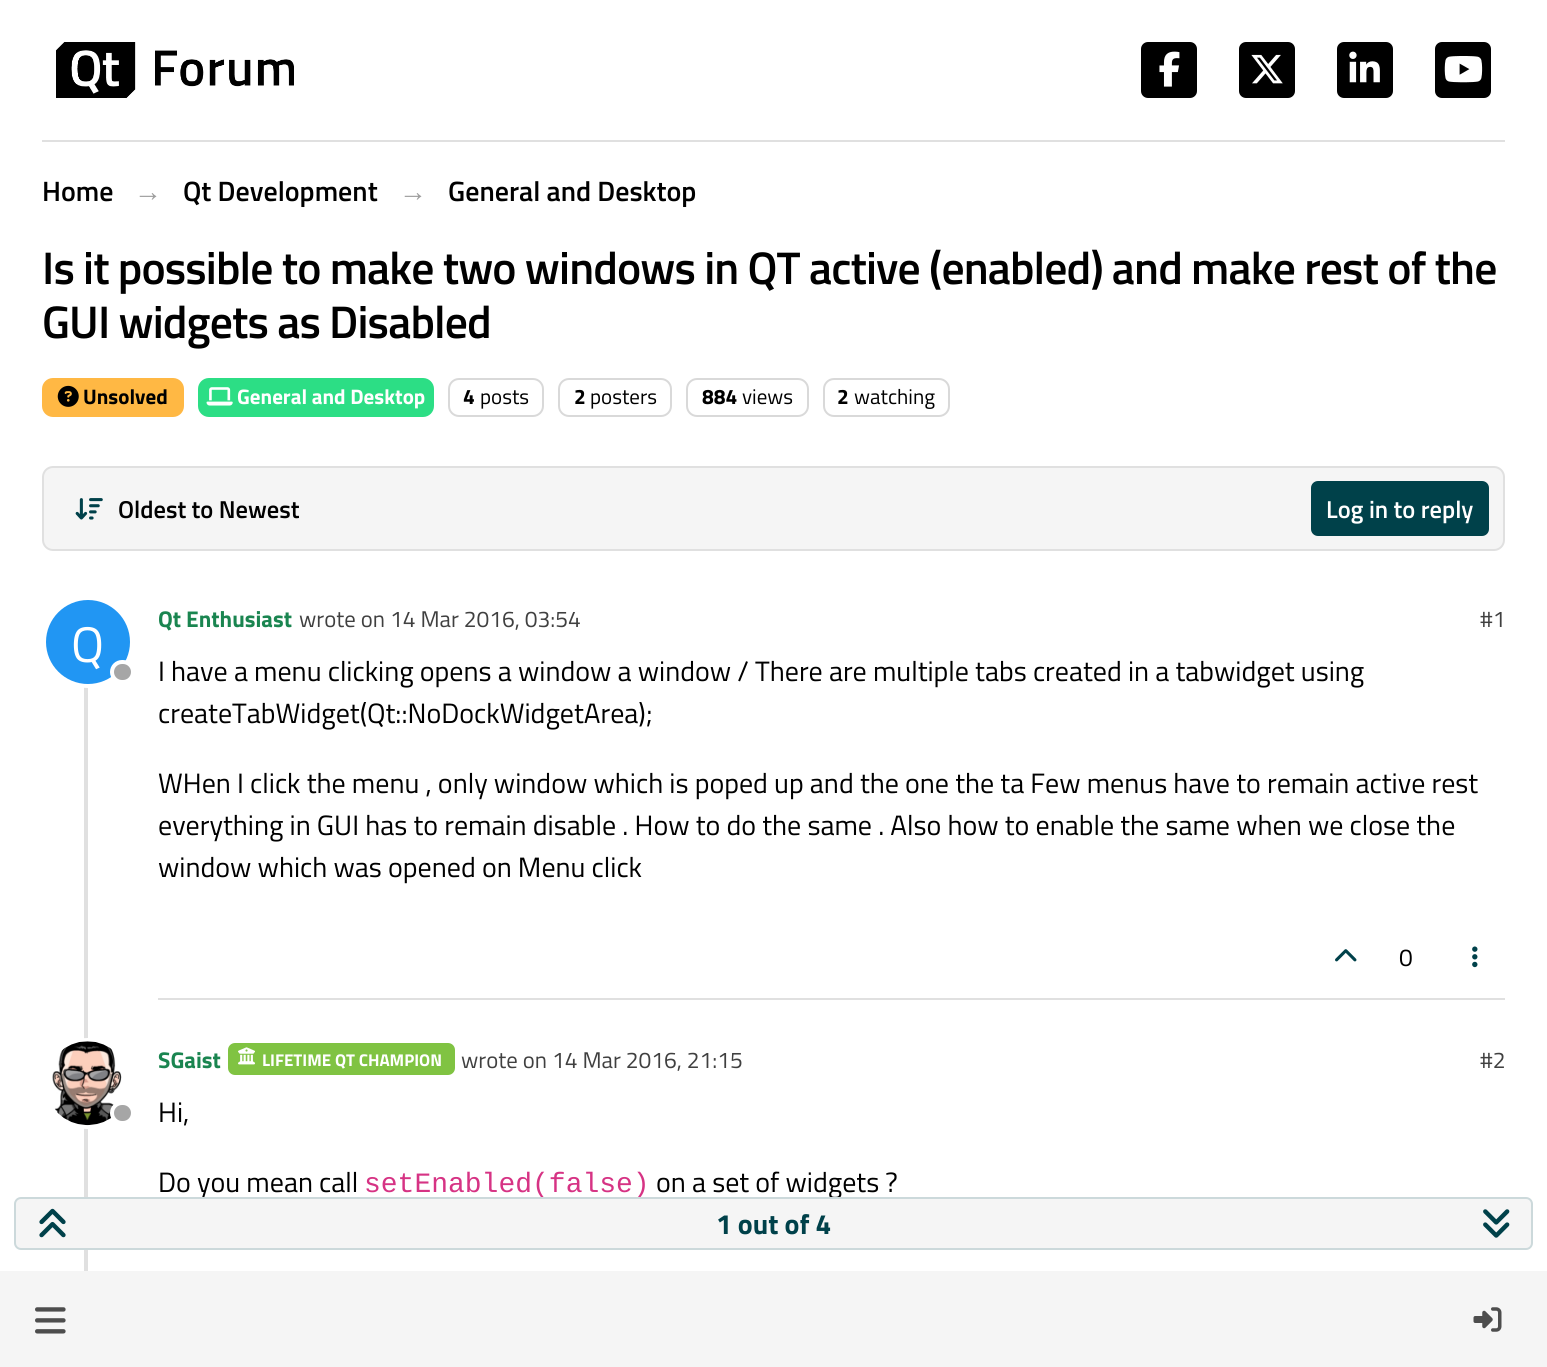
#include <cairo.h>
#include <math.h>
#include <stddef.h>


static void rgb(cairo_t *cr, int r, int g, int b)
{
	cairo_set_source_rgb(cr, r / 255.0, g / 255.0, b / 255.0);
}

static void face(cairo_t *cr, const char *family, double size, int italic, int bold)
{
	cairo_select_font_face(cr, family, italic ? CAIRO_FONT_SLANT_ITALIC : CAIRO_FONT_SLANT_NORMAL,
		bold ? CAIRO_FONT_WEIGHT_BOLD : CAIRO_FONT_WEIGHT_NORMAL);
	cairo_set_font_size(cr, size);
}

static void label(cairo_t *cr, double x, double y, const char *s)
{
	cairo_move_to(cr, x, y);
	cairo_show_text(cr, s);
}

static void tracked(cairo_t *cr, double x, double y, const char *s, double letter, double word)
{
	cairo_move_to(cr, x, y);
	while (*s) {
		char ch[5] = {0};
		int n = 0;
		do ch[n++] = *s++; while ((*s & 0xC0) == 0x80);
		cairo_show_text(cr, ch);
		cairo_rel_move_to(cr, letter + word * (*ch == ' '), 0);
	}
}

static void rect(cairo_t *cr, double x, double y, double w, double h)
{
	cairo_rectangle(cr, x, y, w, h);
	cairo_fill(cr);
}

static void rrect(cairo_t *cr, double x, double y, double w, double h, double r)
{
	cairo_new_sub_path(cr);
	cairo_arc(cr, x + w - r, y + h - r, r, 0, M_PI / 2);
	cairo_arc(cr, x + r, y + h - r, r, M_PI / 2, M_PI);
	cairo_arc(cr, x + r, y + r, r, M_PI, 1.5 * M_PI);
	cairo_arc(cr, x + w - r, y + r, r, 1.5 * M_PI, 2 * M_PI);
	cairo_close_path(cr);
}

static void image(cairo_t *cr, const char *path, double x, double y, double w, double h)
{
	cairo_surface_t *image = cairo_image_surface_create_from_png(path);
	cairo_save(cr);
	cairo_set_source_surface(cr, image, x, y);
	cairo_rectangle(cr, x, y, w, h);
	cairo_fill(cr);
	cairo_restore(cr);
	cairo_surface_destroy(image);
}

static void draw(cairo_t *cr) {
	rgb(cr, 255, 255, 255);
	cairo_paint(cr);
	rgb(cr, 224, 224, 224);
	rect(cr, 42, 140, 1463, 2);
	image(cr, "image0.png", 56, 42, 238, 56);
	rgb(cr, 0, 0, 0);
	rrect(cr, 1141, 42, 56, 56, 7);
	cairo_fill(cr);
	image(cr, "image1.png", 1159, 51, 21, 36);
	rrect(cr, 1239, 42, 56, 56, 7);
	cairo_fill(cr);
	image(cr, "image2.png", 1251, 54, 32, 30);
	rrect(cr, 1337, 42, 56, 56, 7);
	cairo_fill(cr);
	image(cr, "image3.png", 1349, 51, 31, 32);
	rrect(cr, 1435, 42, 56, 56, 7);
	cairo_fill(cr);
	image(cr, "image4.png", 1444, 56, 39, 27);
	face(cr, "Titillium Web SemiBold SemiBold", 28, 0, 0);
	label(cr, 42, 201, "Home");
	face(cr, "Liberation Sans", 28, 0, 1);
	rgb(cr, 158, 158, 158);
	label(cr, 134, 201, "→");
	face(cr, "Titillium Web SemiBold SemiBold", 28, 0, 0);
	rgb(cr, 0, 0, 0);
	label(cr, 183, 201, "Qt Development");
	face(cr, "Liberation Sans", 28, 0, 1);
	rgb(cr, 158, 158, 158);
	label(cr, 399, 201, "→");
	face(cr, "Titillium Web SemiBold SemiBold", 28, 0, 0);
	rgb(cr, 0, 0, 0);
	label(cr, 448, 201, "General and Desktop");
	face(cr, "Titillium Web SemiBold SemiBold", 45.7, 0, 0);
	tracked(cr, 42, 284, "Is it possible to make two windows in QT active (enabled) and make rest of the", -0.9, 0);
	tracked(cr, 42, 338, "GUI widgets as Disabled", -0.9, 0);
	rgb(cr, 255, 184, 68);
	rrect(cr, 43, 379, 140, 37, 10);
	cairo_fill_preserve(cr);
	cairo_stroke(cr);
	image(cr, "image5.png", 57, 385, 22, 22);
	face(cr, "Titillium Web", 21, 0, 1);
	rgb(cr, 0, 0, 0);
	label(cr, 83, 404, "Unsolved");
	rgb(cr, 44, 222, 133);
	rrect(cr, 199, 379, 234, 37, 10);
	cairo_fill_preserve(cr);
	cairo_stroke(cr);
	image(cr, "image6.png", 206, 387, 27, 19);
	rgb(cr, 255, 255, 255);
	label(cr, 237, 404, "General and Desktop");
	rrect(cr, 449, 379, 94, 37, 10);
	rgb(cr, 217, 217, 217);
	cairo_stroke(cr);
	rgb(cr, 0, 0, 0);
	label(cr, 463, 404, "4");
	face(cr, "Titillium Web", 21, 0, 0);
	label(cr, 480, 404, "posts");
	rrect(cr, 559, 379, 112, 37, 10);
	rgb(cr, 217, 217, 217);
	cairo_stroke(cr);
	face(cr, "Titillium Web", 21, 0, 1);
	rgb(cr, 0, 0, 0);
	label(cr, 574, 404, "2");
	face(cr, "Titillium Web", 21, 0, 0);
	label(cr, 590, 404, "posters");
	rrect(cr, 687, 379, 121, 37, 10);
	rgb(cr, 217, 217, 217);
	cairo_stroke(cr);
	face(cr, "Titillium Web", 21, 0, 1);
	rgb(cr, 0, 0, 0);
	label(cr, 702, 404, "884");
	face(cr, "Titillium Web", 21, 0, 0);
	label(cr, 742, 404, "views");
	rrect(cr, 824, 379, 125, 37, 10);
	rgb(cr, 217, 217, 217);
	cairo_stroke(cr);
	face(cr, "Titillium Web", 21, 0, 1);
	rgb(cr, 0, 0, 0);
	label(cr, 837, 404, "2");
	face(cr, "Titillium Web", 21, 0, 0);
	label(cr, 854, 404, "watching");
	rgb(cr, 245, 245, 245);
	rrect(cr, 43, 467, 1461, 83, 10);
	cairo_fill_preserve(cr);
	rgb(cr, 224, 224, 224);
	cairo_stroke(cr);
	image(cr, "image7.png", 75, 498, 28, 22);
	cairo_save(cr);
	cairo_rectangle(cr, 119, 490, 180, 37);
	cairo_clip(cr);
	face(cr, "Titillium Web SemiBold SemiBold", 24.5, 0, 0);
	rgb(cr, 0, 0, 0);
	label(cr, 118, 518, "Oldest to Newest");
	cairo_restore(cr);
	rgb(cr, 0, 65, 74);
	rrect(cr, 1312, 482, 176, 53, 6);
	cairo_fill_preserve(cr);
	cairo_stroke(cr);
	face(cr, "Titillium Web SemiBold SemiBold", 24.5, 0, 0);
	rgb(cr, 255, 255, 255);
	label(cr, 1326, 518, "Log in to reply");
	rgb(cr, 224, 224, 224);
	rect(cr, 84, 683, 4, 588);
	cairo_new_path(cr);
	cairo_arc(cr, 87.5, 642.5, 43.5, 0, 2 * M_PI);
	rgb(cr, 255, 255, 255);
	cairo_set_line_width(cr, 4);
	cairo_stroke(cr);
	rgb(cr, 33, 150, 243);
	cairo_arc(cr, 88, 642, 42, 0, 2 * M_PI);
	cairo_fill(cr);
	face(cr, "Titillium Web", 50, 0, 0);
	rgb(cr, 255, 255, 255);
	label(cr, 71, 662, "Q");
	rgb(cr, 166, 166, 166);
	rrect(cr, 112, 662, 21, 20, 10);
	cairo_fill_preserve(cr);
	rgb(cr, 255, 255, 255);
	cairo_stroke(cr);
	face(cr, "Titillium Web", 22.75, 0, 1);
	rgb(cr, 26, 133, 80);
	label(cr, 158, 627, "Qt Enthusiast");
	face(cr, "Titillium Web", 22.75, 0, 0);
	rgb(cr, 64, 64, 64);
	label(cr, 299, 627, "wrote on 14 Mar 2016, 03:54");
	label(cr, 1480, 627, "#1");
	face(cr, "Titillium Web", 28, 0, 0);
	rgb(cr, 0, 0, 0);
	label(cr, 158, 681, "I have a menu clicking opens a window a window / There are multiple tabs created in a tabwidget using");
	label(cr, 158, 723, "createTabWidget(Qt::NoDockWidgetArea);");
	label(cr, 158, 793, "WHen I click the menu , only window which is poped up and the one the ta Few menus have to remain active rest");
	label(cr, 158, 835, "everything in GUI has to remain disable . How to do the same . Also how to enable the same when we close the");
	label(cr, 158, 877, "window which was opened on Menu click");
	rgb(cr, 224, 224, 224);
	rect(cr, 158, 998, 1347, 2);
	image(cr, "image8.png", 1335, 949, 22, 13);
	face(cr, "Titillium Web", 24.5, 0, 0);
	rgb(cr, 0, 0, 0);
	label(cr, 1399, 966, "0");
	image(cr, "image9.png", 1472, 946, 6, 22);
	rgb(cr, 255, 255, 255);
	cairo_arc(cr, 87.5, 1083.5, 43.5, 0, 2 * M_PI);
	cairo_fill_preserve(cr);
	cairo_stroke(cr);
	image(cr, "image10.png", 52, 1041, 70, 85);
	rgb(cr, 166, 166, 166);
	rrect(cr, 112, 1103, 21, 20, 10);
	cairo_fill_preserve(cr);
	rgb(cr, 255, 255, 255);
	cairo_stroke(cr);
	face(cr, "Titillium Web", 22.75, 0, 1);
	rgb(cr, 26, 133, 80);
	label(cr, 158, 1068, "SGaist");
	rgb(cr, 128, 195, 66);
	rrect(cr, 228, 1043, 227, 32, 7);
	cairo_fill(cr);
	image(cr, "image11.png", 238, 1047, 17, 18);
	face(cr, "Titillium Web", 17, 0, 1);
	rgb(cr, 255, 255, 255);
	label(cr, 262, 1066, "LIFETIME QT CHAMPION");
	face(cr, "Titillium Web", 22.75, 0, 0);
	rgb(cr, 64, 64, 64);
	label(cr, 461, 1068, "wrote on 14 Mar 2016, 21:15");
	label(cr, 1480, 1068, "#2");
	face(cr, "Titillium Web", 28, 0, 0);
	rgb(cr, 0, 0, 0);
	label(cr, 158, 1122, "Hi,");
	label(cr, 158, 1192, "Do you mean call");
	face(cr, "Liberation Mono", 28, 0, 0);
	rgb(cr, 214, 51, 132);
	label(cr, 364, 1192, "setEnabled(false)");
	face(cr, "Titillium Web", 28, 0, 0);
	rgb(cr, 0, 0, 0);
	label(cr, 656, 1192, "on a set of widgets ?");
	rgb(cr, 245, 245, 245);
	rrect(cr, 15, 1198, 1517, 51, 6);
	cairo_fill_preserve(cr);
	rgb(cr, 204, 217, 219);
	cairo_set_line_width(cr, 2);
	cairo_stroke(cr);
	image(cr, "image12.png", 39, 1208, 27, 30);
	face(cr, "Titillium Web", 28, 0, 1);
	rgb(cr, 0, 65, 74);
	label(cr, 716, 1234, "1 out of 4");
	image(cr, "image13.png", 1483, 1209, 27, 29);
	rgb(cr, 245, 245, 245);
	rect(cr, 0, 1271, 1547, 96);
	image(cr, "image14.png", 35, 1307, 31, 27);
	image(cr, "image15.png", 1473, 1307, 29, 25);
}

int main(void) {
	cairo_surface_t *surface = cairo_image_surface_create(CAIRO_FORMAT_RGB24, 1547, 1367);
	cairo_t *cr = cairo_create(surface);
	cairo_font_options_t *options = cairo_font_options_create();
	cairo_font_options_set_hint_metrics(options, CAIRO_HINT_METRICS_OFF);
	cairo_font_options_set_hint_style(options, CAIRO_HINT_STYLE_NONE);
	cairo_set_font_options(cr, options);
	cairo_set_miter_limit(cr, 4);
	draw(cr);
	cairo_surface_write_to_png(surface, "render.png");
	cairo_font_options_destroy(options);
	cairo_destroy(cr);
	cairo_surface_destroy(surface);
	return 0;
}
